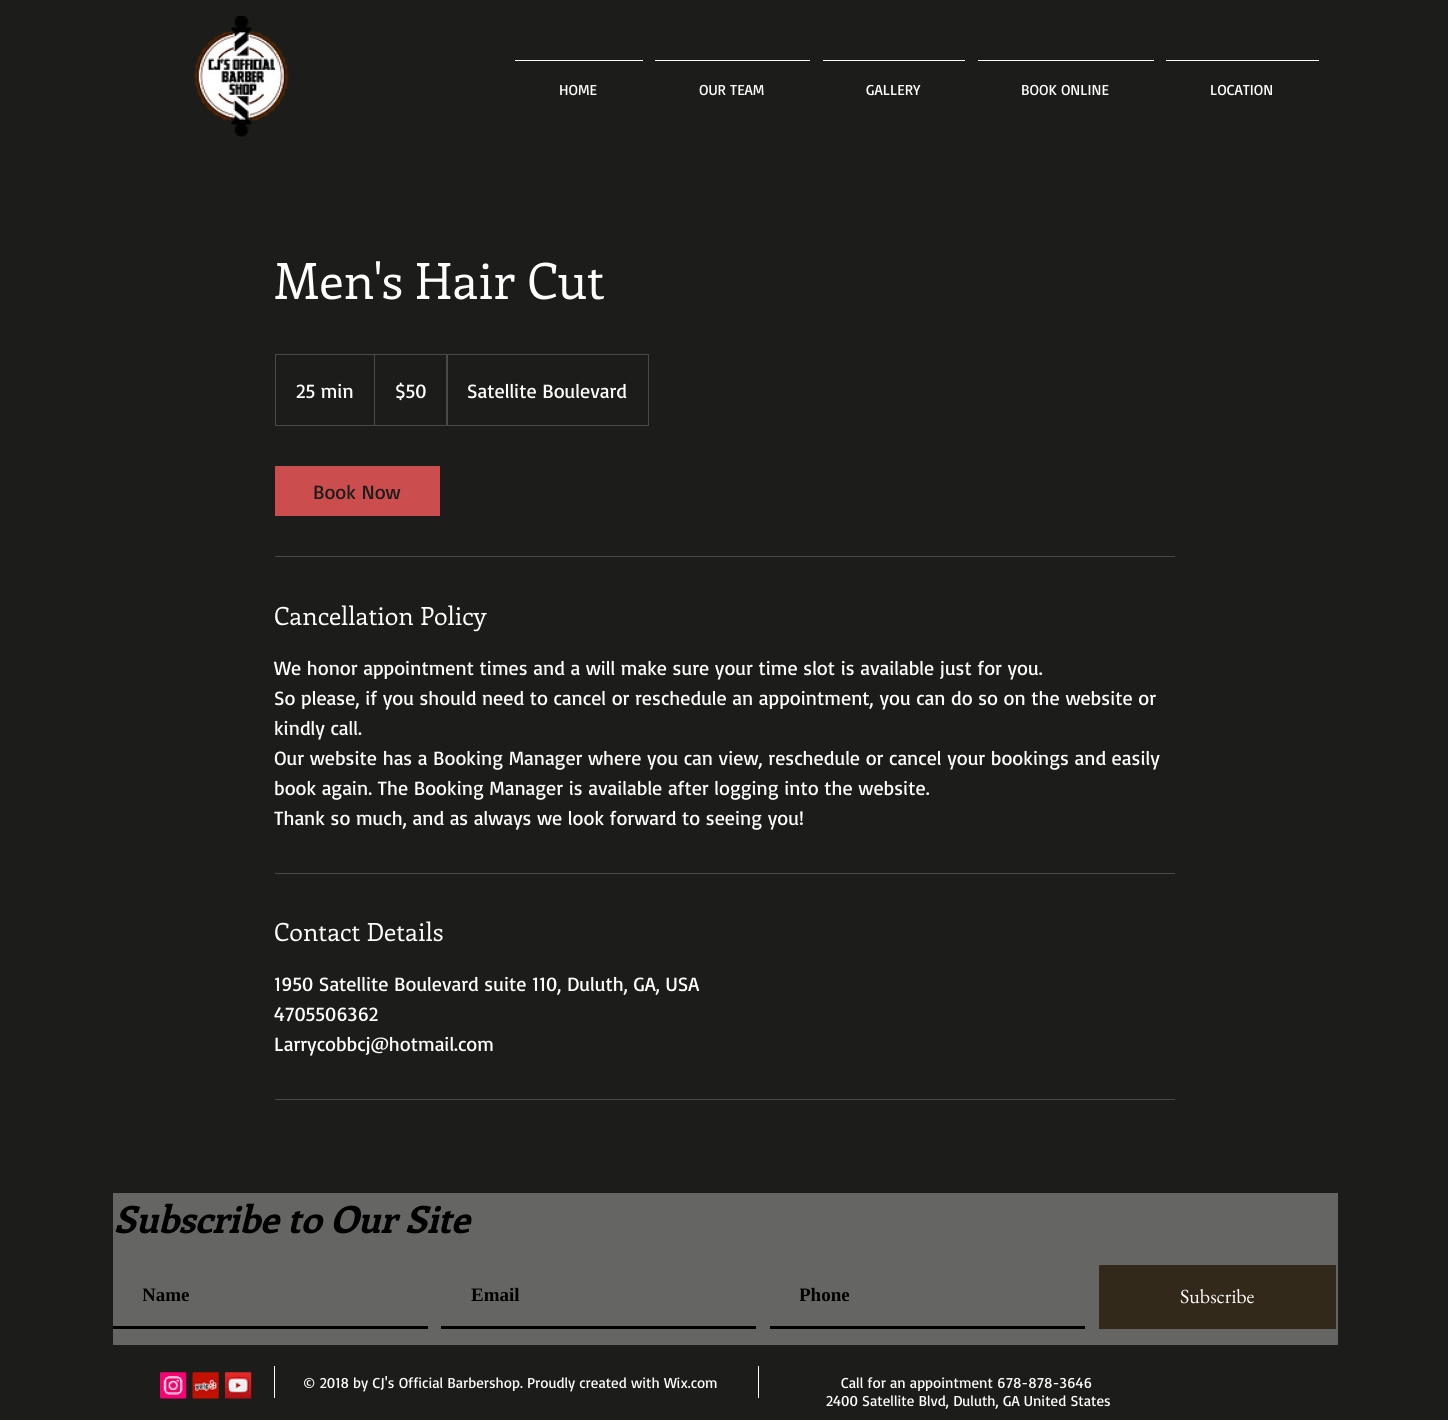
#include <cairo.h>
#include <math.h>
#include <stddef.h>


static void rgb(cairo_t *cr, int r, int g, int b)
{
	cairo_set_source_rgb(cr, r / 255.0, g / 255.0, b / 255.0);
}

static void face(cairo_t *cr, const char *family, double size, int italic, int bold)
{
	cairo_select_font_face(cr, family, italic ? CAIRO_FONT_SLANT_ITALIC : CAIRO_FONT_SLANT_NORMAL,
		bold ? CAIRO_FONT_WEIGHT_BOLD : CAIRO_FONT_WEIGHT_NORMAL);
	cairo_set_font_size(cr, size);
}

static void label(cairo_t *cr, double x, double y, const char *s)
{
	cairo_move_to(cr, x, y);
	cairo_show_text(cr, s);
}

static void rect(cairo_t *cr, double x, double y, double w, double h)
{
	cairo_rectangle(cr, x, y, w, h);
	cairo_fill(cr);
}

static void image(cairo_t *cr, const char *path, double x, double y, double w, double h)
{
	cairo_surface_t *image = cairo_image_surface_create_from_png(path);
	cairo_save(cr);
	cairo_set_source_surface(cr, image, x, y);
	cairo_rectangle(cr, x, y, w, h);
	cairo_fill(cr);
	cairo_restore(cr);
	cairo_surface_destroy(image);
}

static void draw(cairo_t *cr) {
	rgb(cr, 28, 28, 26);
	cairo_paint(cr);
	image(cr, "image0.png", 193, 16, 96, 121);
	rgb(cr, 255, 255, 255);
	rect(cr, 515, 60, 128, 1);
	face(cr, "Basic", 15, 0, 0);
	label(cr, 559, 95, "HOME");
	rect(cr, 655, 60, 155, 1);
	label(cr, 699, 95, "OUR TEAM");
	rect(cr, 823, 60, 142, 1);
	label(cr, 866, 95, "GALLERY");
	rect(cr, 978, 60, 176, 1);
	label(cr, 1021, 95, "BOOK ONLINE");
	rect(cr, 1166, 60, 153, 1);
	label(cr, 1210, 95, "LOCATION");
	face(cr, "Enriqueta", 50, 0, 0);
	label(cr, 274, 299, "Men's Hair Cut");
	cairo_rectangle(cr, 275.5, 354.5, 373, 71);
	rgb(cr, 73, 73, 72);
	cairo_set_line_width(cr, 1);
	cairo_stroke(cr);
	face(cr, "Basic", 20, 0, 0);
	rgb(cr, 255, 255, 255);
	label(cr, 296, 398, "25 min");
	rgb(cr, 73, 73, 72);
	cairo_new_path(cr);
	cairo_move_to(cr, 374, 425);
	cairo_line_to(cr, 374, 354);
	cairo_line_to(cr, 375, 355);
	cairo_line_to(cr, 375, 425);
	cairo_close_path(cr);
	cairo_fill(cr);
	rgb(cr, 255, 255, 255);
	label(cr, 395, 398, "$50");
	rgb(cr, 73, 73, 72);
	cairo_new_path(cr);
	cairo_move_to(cr, 446, 425);
	cairo_line_to(cr, 446, 354);
	cairo_line_to(cr, 448, 355);
	cairo_line_to(cr, 448, 425);
	cairo_close_path(cr);
	cairo_fill(cr);
	rgb(cr, 255, 255, 255);
	label(cr, 467, 398, "Satellite Boulevard");
	rgb(cr, 204, 77, 77);
	rect(cr, 275, 466, 165, 50);
	rgb(cr, 28, 28, 26);
	label(cr, 313, 499, "Book Now");
	rgb(cr, 73, 73, 72);
	rect(cr, 275, 556, 900, 1);
	face(cr, "Enriqueta", 25, 0, 0);
	rgb(cr, 255, 255, 255);
	label(cr, 274, 625, "Cancellation Policy");
	face(cr, "Basic", 20, 0, 0);
	label(cr, 274, 675, "We honor appointment times and a will make sure your time slot is available just for you.");
	label(cr, 274, 705, "So please, if you should need to cancel or reschedule an appointment, you can do so on the website or");
	label(cr, 274, 735, "kindly call.");
	label(cr, 274, 765, "Our website has a Booking Manager where you can view, reschedule or cancel your bookings and easily");
	label(cr, 274, 795, "book again. The Booking Manager is available after logging into the website.");
	label(cr, 274, 825, "Thank so much, and as always we look forward to seeing you!");
	rgb(cr, 73, 73, 72);
	rect(cr, 275, 873, 900, 1);
	face(cr, "Enriqueta", 25, 0, 0);
	rgb(cr, 255, 255, 255);
	label(cr, 274, 941, "Contact Details");
	face(cr, "Basic", 20, 0, 0);
	label(cr, 274, 991, "1950 Satellite Boulevard suite 110, Duluth, GA, USA");
	label(cr, 274, 1021, "4705506362");
	label(cr, 274, 1051, "Larrycobbcj@hotmail.com");
	rgb(cr, 73, 73, 72);
	rect(cr, 275, 1099, 900, 1);
	rgb(cr, 101, 101, 99);
	rect(cr, 113, 1193, 1225, 152);
	face(cr, "Enriqueta", 37.5, 1, 1);
	rgb(cr, 0, 0, 0);
	label(cr, 114, 1233, "Subscribe to Our Site");
	rect(cr, 113, 1326, 315, 3);
	cairo_save(cr);
	cairo_rectangle(cr, 143, 1285, 281, 21);
	cairo_clip(cr);
	face(cr, "Liberation Serif", 19, 0, 1);
	label(cr, 142, 1301, "Name");
	cairo_restore(cr);
	rect(cr, 441, 1326, 315, 3);
	face(cr, "Liberation Serif", 19, 0, 1);
	label(cr, 471, 1301, "Email");
	rect(cr, 770, 1326, 315, 3);
	cairo_save(cr);
	cairo_rectangle(cr, 800, 1285, 281, 21);
	cairo_clip(cr);
	label(cr, 799, 1301, "Phone");
	cairo_restore(cr);
	rgb(cr, 51, 41, 27);
	rect(cr, 1099, 1265, 237, 64);
	face(cr, "EB Garamond", 20, 0, 0);
	rgb(cr, 255, 255, 255);
	label(cr, 1180, 1303, "Subscribe");
	image(cr, "image1.png", 160, 1372, 27, 27);
	image(cr, "image2.png", 192, 1372, 27, 27);
	image(cr, "image3.png", 225, 1372, 27, 27);
	rect(cr, 274, 1366, 1, 32);
	face(cr, "Basic", 15, 0, 0);
	label(cr, 303, 1388, "© 2018 by CJ's Official Barbershop. Proudly created with Wix.com");
	rect(cr, 758, 1366, 1, 32);
	label(cr, 841, 1388, "Call for an appointment 678-878-3646");
	label(cr, 826, 1406, "2400 Satellite Blvd, Duluth, GA United States");
}

int main(void) {
	cairo_surface_t *surface = cairo_image_surface_create(CAIRO_FORMAT_RGB24, 1448, 1420);
	cairo_t *cr = cairo_create(surface);
	cairo_font_options_t *options = cairo_font_options_create();
	cairo_font_options_set_hint_metrics(options, CAIRO_HINT_METRICS_OFF);
	cairo_font_options_set_hint_style(options, CAIRO_HINT_STYLE_NONE);
	cairo_set_font_options(cr, options);
	cairo_set_miter_limit(cr, 4);
	draw(cr);
	cairo_surface_write_to_png(surface, "render.png");
	cairo_font_options_destroy(options);
	cairo_destroy(cr);
	cairo_surface_destroy(surface);
	return 0;
}
